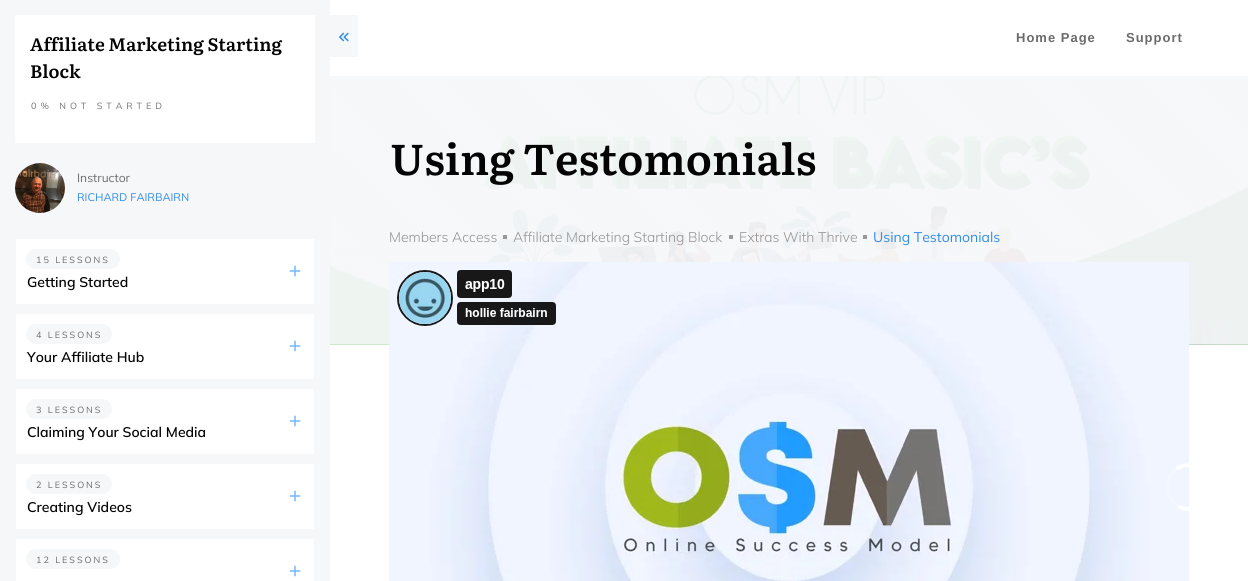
#include <cairo.h>
#include <math.h>
#include <stddef.h>


static void rgb(cairo_t *cr, int r, int g, int b)
{
	cairo_set_source_rgb(cr, r / 255.0, g / 255.0, b / 255.0);
}

static void face(cairo_t *cr, const char *family, double size, int italic, int bold)
{
	cairo_select_font_face(cr, family, italic ? CAIRO_FONT_SLANT_ITALIC : CAIRO_FONT_SLANT_NORMAL,
		bold ? CAIRO_FONT_WEIGHT_BOLD : CAIRO_FONT_WEIGHT_NORMAL);
	cairo_set_font_size(cr, size);
}

static void label(cairo_t *cr, double x, double y, const char *s)
{
	cairo_move_to(cr, x, y);
	cairo_show_text(cr, s);
}

static void tracked(cairo_t *cr, double x, double y, const char *s, double letter, double word)
{
	cairo_move_to(cr, x, y);
	while (*s) {
		char ch[5] = {0};
		int n = 0;
		do ch[n++] = *s++; while ((*s & 0xC0) == 0x80);
		cairo_show_text(cr, ch);
		cairo_rel_move_to(cr, letter + word * (*ch == ' '), 0);
	}
}

static void rect(cairo_t *cr, double x, double y, double w, double h)
{
	cairo_rectangle(cr, x, y, w, h);
	cairo_fill(cr);
}

static void rrect(cairo_t *cr, double x, double y, double w, double h, double r)
{
	cairo_new_sub_path(cr);
	cairo_arc(cr, x + w - r, y + h - r, r, 0, M_PI / 2);
	cairo_arc(cr, x + r, y + h - r, r, M_PI / 2, M_PI);
	cairo_arc(cr, x + r, y + r, r, M_PI, 1.5 * M_PI);
	cairo_arc(cr, x + w - r, y + r, r, 1.5 * M_PI, 2 * M_PI);
	cairo_close_path(cr);
}

static void image(cairo_t *cr, const char *path, double x, double y, double w, double h)
{
	cairo_surface_t *image = cairo_image_surface_create_from_png(path);
	cairo_save(cr);
	cairo_set_source_surface(cr, image, x, y);
	cairo_rectangle(cr, x, y, w, h);
	cairo_fill(cr);
	cairo_restore(cr);
	cairo_surface_destroy(image);
}

static void draw(cairo_t *cr) {
	rgb(cr, 255, 255, 255);
	cairo_paint(cr);
	rgb(cr, 245, 247, 249);
	rect(cr, 0, 0, 330, 581);
	rect(cr, 330, 15, 28, 42);
	image(cr, "image0.png", 338, 32, 11, 10);
	rgb(cr, 255, 255, 255);
	rect(cr, 15, 15, 300, 128);
	face(cr, "Literata SemiBold", 18, 0, 0);
	rgb(cr, 4, 4, 4);
	label(cr, 30, 51, "Affiliate Marketing Starting");
	label(cr, 30, 78, "Block");
	face(cr, "Mulish", 9, 0, 0);
	rgb(cr, 114, 114, 114);
	tracked(cr, 31, 109, "0% NOT STARTED", 4, 0);
	image(cr, "image1.png", 15, 163, 50, 50);
	face(cr, "Mulish", 12, 0, 0);
	rgb(cr, 106, 107, 108);
	label(cr, 77, 182, "Instructor");
	face(cr, "Mulish", 11, 0, 0);
	rgb(cr, 50, 140, 231);
	label(cr, 77, 201, "RICHARD FAIRBAIRN");
	rgb(cr, 255, 255, 255);
	rect(cr, 16, 239, 298, 65);
	rgb(cr, 245, 247, 249);
	rrect(cr, 26, 249, 94, 20, 10);
	cairo_fill(cr);
	face(cr, "Mulish", 9, 0, 0);
	rgb(cr, 106, 107, 108);
	tracked(cr, 36, 263, "15 LESSONS", 2, 0);
	face(cr, "Mulish SemiBold", 14, 0, 0);
	rgb(cr, 4, 4, 4);
	label(cr, 27, 287, "Getting Started");
	image(cr, "image2.png", 289, 265, 12, 12);
	rgb(cr, 255, 255, 255);
	rect(cr, 16, 314, 298, 65);
	rgb(cr, 245, 247, 249);
	rrect(cr, 26, 324, 86, 20, 10);
	cairo_fill(cr);
	face(cr, "Mulish", 9, 0, 0);
	rgb(cr, 106, 107, 108);
	tracked(cr, 36, 338, "4 LESSONS", 2, 0);
	face(cr, "Mulish SemiBold", 14, 0, 0);
	rgb(cr, 4, 4, 4);
	label(cr, 27, 362, "Your Affiliate Hub");
	image(cr, "image2.png", 289, 340, 12, 12);
	rgb(cr, 255, 255, 255);
	rect(cr, 16, 389, 298, 65);
	rgb(cr, 245, 247, 249);
	rrect(cr, 26, 399, 86, 20, 10);
	cairo_fill(cr);
	face(cr, "Mulish", 9, 0, 0);
	rgb(cr, 106, 107, 108);
	tracked(cr, 36, 413, "3 LESSONS", 2, 0);
	face(cr, "Mulish SemiBold", 14, 0, 0);
	rgb(cr, 4, 4, 4);
	label(cr, 27, 437, "Claiming Your Social Media");
	image(cr, "image2.png", 289, 415, 12, 12);
	rgb(cr, 255, 255, 255);
	rect(cr, 16, 464, 298, 65);
	rgb(cr, 245, 247, 249);
	rrect(cr, 26, 474, 86, 20, 10);
	cairo_fill(cr);
	face(cr, "Mulish", 9, 0, 0);
	rgb(cr, 106, 107, 108);
	tracked(cr, 36, 488, "2 LESSONS", 2, 0);
	face(cr, "Mulish SemiBold", 14, 0, 0);
	rgb(cr, 4, 4, 4);
	label(cr, 27, 512, "Creating Videos");
	image(cr, "image2.png", 289, 490, 12, 12);
	rgb(cr, 255, 255, 255);
	rect(cr, 16, 539, 298, 42);
	rgb(cr, 245, 247, 249);
	rrect(cr, 26, 549, 94, 20, 10);
	cairo_fill(cr);
	face(cr, "Mulish", 9, 0, 0);
	rgb(cr, 106, 107, 108);
	tracked(cr, 36, 563, "12 LESSONS", 2, 0);
	image(cr, "image2.png", 289, 565, 12, 12);
	image(cr, "image3.png", 330, 76, 918, 269);
	face(cr, "Literata SemiBold", 43, 0, 0);
	rgb(cr, 4, 4, 4);
	label(cr, 390, 175, "Using Testomonials");
	face(cr, "Mulish Light", 14, 0, 0);
	rgb(cr, 147, 146, 146);
	label(cr, 389, 242, "Members Access");
	cairo_set_source_rgba(cr, 0.576, 0.573, 0.573, 0.93);
	rect(cr, 503, 235, 4, 4);
	rgb(cr, 147, 146, 146);
	label(cr, 513, 242, "Affiliate Marketing Starting Block");
	rgb(cr, 154, 153, 153);
	rect(cr, 729, 235, 4, 4);
	rgb(cr, 147, 146, 146);
	label(cr, 739, 242, "Extras With Thrive");
	rgb(cr, 154, 153, 153);
	rect(cr, 863, 235, 4, 4);
	face(cr, "Mulish", 14, 0, 0);
	rgb(cr, 50, 140, 231);
	label(cr, 873, 242, "Using Testomonials");
	image(cr, "image4.png", 389, 262, 800, 319);
	face(cr, "Liberation Sans", 13, 0, 1);
	rgb(cr, 106, 107, 108);
	tracked(cr, 1016, 42, "Home Page", 1, 0);
	tracked(cr, 1126, 42, "Support", 1, 0);
}

int main(void) {
	cairo_surface_t *surface = cairo_image_surface_create(CAIRO_FORMAT_RGB24, 1248, 581);
	cairo_t *cr = cairo_create(surface);
	cairo_font_options_t *options = cairo_font_options_create();
	cairo_font_options_set_hint_metrics(options, CAIRO_HINT_METRICS_OFF);
	cairo_font_options_set_hint_style(options, CAIRO_HINT_STYLE_NONE);
	cairo_set_font_options(cr, options);
	cairo_set_miter_limit(cr, 4);
	draw(cr);
	cairo_surface_write_to_png(surface, "render.png");
	cairo_font_options_destroy(options);
	cairo_destroy(cr);
	cairo_surface_destroy(surface);
	return 0;
}
